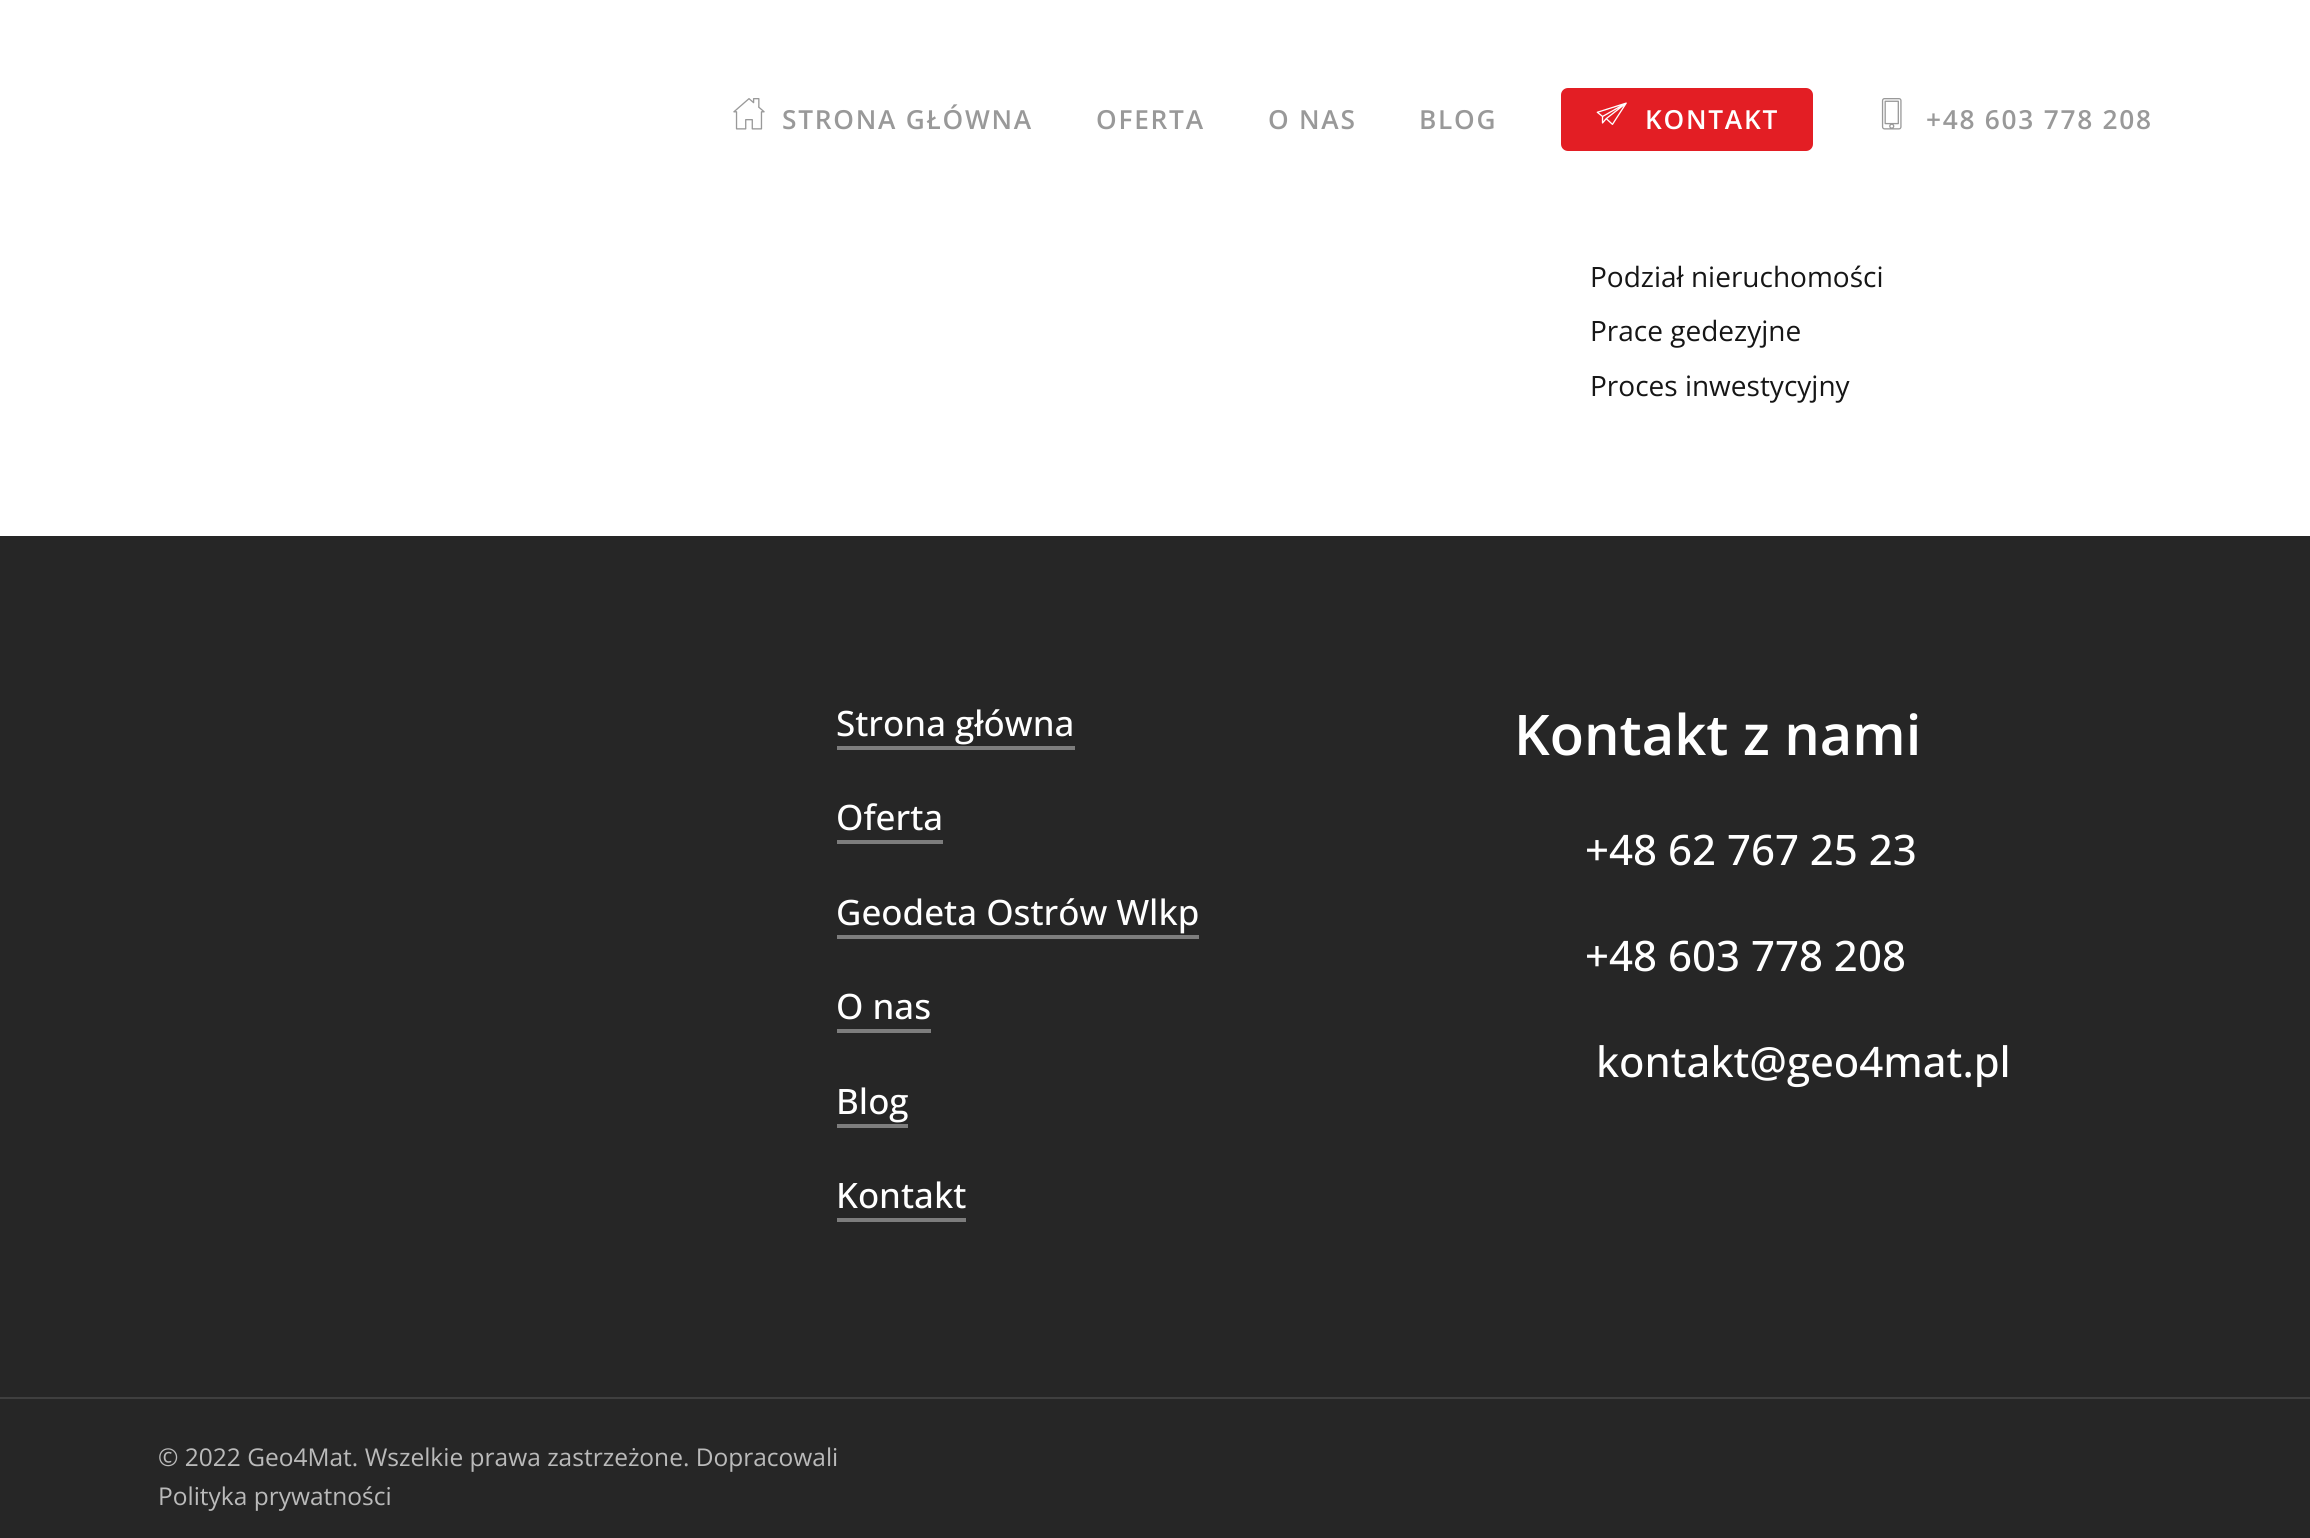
#include <cairo.h>
#include <math.h>
#include <stddef.h>


static void rgb(cairo_t *cr, int r, int g, int b)
{
	cairo_set_source_rgb(cr, r / 255.0, g / 255.0, b / 255.0);
}

static void face(cairo_t *cr, const char *family, double size, int italic, int bold)
{
	cairo_select_font_face(cr, family, italic ? CAIRO_FONT_SLANT_ITALIC : CAIRO_FONT_SLANT_NORMAL,
		bold ? CAIRO_FONT_WEIGHT_BOLD : CAIRO_FONT_WEIGHT_NORMAL);
	cairo_set_font_size(cr, size);
}

static void label(cairo_t *cr, double x, double y, const char *s)
{
	cairo_move_to(cr, x, y);
	cairo_show_text(cr, s);
}

static void tracked(cairo_t *cr, double x, double y, const char *s, double letter, double word)
{
	cairo_move_to(cr, x, y);
	while (*s) {
		char ch[5] = {0};
		int n = 0;
		do ch[n++] = *s++; while ((*s & 0xC0) == 0x80);
		cairo_show_text(cr, ch);
		cairo_rel_move_to(cr, letter + word * (*ch == ' '), 0);
	}
}

static void rect(cairo_t *cr, double x, double y, double w, double h)
{
	cairo_rectangle(cr, x, y, w, h);
	cairo_fill(cr);
}

static void rrect(cairo_t *cr, double x, double y, double w, double h, double r)
{
	cairo_new_sub_path(cr);
	cairo_arc(cr, x + w - r, y + h - r, r, 0, M_PI / 2);
	cairo_arc(cr, x + r, y + h - r, r, M_PI / 2, M_PI);
	cairo_arc(cr, x + r, y + r, r, M_PI, 1.5 * M_PI);
	cairo_arc(cr, x + w - r, y + r, r, 1.5 * M_PI, 2 * M_PI);
	cairo_close_path(cr);
}

static void image(cairo_t *cr, const char *path, double x, double y, double w, double h)
{
	cairo_surface_t *image = cairo_image_surface_create_from_png(path);
	cairo_save(cr);
	cairo_set_source_surface(cr, image, x, y);
	cairo_rectangle(cr, x, y, w, h);
	cairo_fill(cr);
	cairo_restore(cr);
	cairo_surface_destroy(image);
}

static void draw(cairo_t *cr) {
	rgb(cr, 255, 255, 255);
	cairo_paint(cr);
	image(cr, "image0.png", 733, 98, 32, 32);
	face(cr, "Open Sans SemiBold", 26.25, 0, 0);
	rgb(cr, 153, 153, 153);
	tracked(cr, 782, 129, "STRONA GŁÓWNA", 1.75, 0);
	tracked(cr, 1096, 129, "OFERTA", 1.75, 0);
	tracked(cr, 1268, 129, "O NAS", 1.75, 0);
	tracked(cr, 1419, 129, "BLOG", 1.75, 0);
	rgb(cr, 227, 30, 36);
	rrect(cr, 1561, 88, 252, 63, 7);
	cairo_fill(cr);
	image(cr, "image1.png", 1596, 102, 31, 23);
	rgb(cr, 255, 255, 255);
	tracked(cr, 1645, 129, "KONTAKT", 1.75, 0);
	image(cr, "image2.png", 1881, 98, 21, 32);
	rgb(cr, 153, 153, 153);
	tracked(cr, 1926, 129, "+48 603 778 208", 1.75, 0);
	face(cr, "Open Sans", 28, 0, 0);
	rgb(cr, 22, 22, 22);
	label(cr, 1590, 287, "Podział nieruchomości");
	label(cr, 1590, 341, "Prace gedezyjne");
	label(cr, 1590, 396, "Proces inwestycyjny");
	rgb(cr, 38, 38, 38);
	rect(cr, 0, 536, 2310, 861);
	face(cr, "Open Sans Medium", 35, 0, 0);
	rgb(cr, 255, 255, 255);
	label(cr, 836, 736, "Strona główna");
	rgb(cr, 125, 125, 125);
	rect(cr, 837, 746, 238, 4);
	rgb(cr, 255, 255, 255);
	label(cr, 836, 830, "Oferta");
	rgb(cr, 125, 125, 125);
	rect(cr, 837, 840, 106, 4);
	rgb(cr, 255, 255, 255);
	label(cr, 836, 925, "Geodeta Ostrów Wlkp");
	rgb(cr, 125, 125, 125);
	rect(cr, 837, 935, 362, 4);
	rgb(cr, 255, 255, 255);
	label(cr, 836, 1019, "O nas");
	rgb(cr, 125, 125, 125);
	rect(cr, 837, 1029, 94, 4);
	rgb(cr, 255, 255, 255);
	label(cr, 836, 1114, "Blog");
	rgb(cr, 125, 125, 125);
	rect(cr, 837, 1124, 71, 4);
	rgb(cr, 255, 255, 255);
	label(cr, 836, 1208, "Kontakt");
	rgb(cr, 125, 125, 125);
	rect(cr, 837, 1218, 129, 4);
	face(cr, "Open Sans SemiBold", 56, 0, 0);
	rgb(cr, 255, 255, 255);
	label(cr, 1514, 755, "Kontakt z nami");
	face(cr, "Open Sans Medium", 42, 0, 0);
	label(cr, 1585, 865, "+48 62 767 25 23");
	label(cr, 1585, 971, "+48 603 778 208");
	label(cr, 1596, 1077, "kontakt@geo4mat.pl");
	rgb(cr, 38, 38, 38);
	rect(cr, 0, 1399, 2310, 139);
	rgb(cr, 63, 63, 63);
	rect(cr, 0, 1397, 2310, 2);
	face(cr, "Open Sans", 24.5, 0, 0);
	rgb(cr, 186, 186, 186);
	label(cr, 158, 1466, "© 2022 Geo4Mat. Wszelkie prawa zastrzeżone. Dopracowali");
	label(cr, 158, 1505, "Polityka prywatności");
}

int main(void) {
	cairo_surface_t *surface = cairo_image_surface_create(CAIRO_FORMAT_RGB24, 2310, 1538);
	cairo_t *cr = cairo_create(surface);
	cairo_font_options_t *options = cairo_font_options_create();
	cairo_font_options_set_hint_metrics(options, CAIRO_HINT_METRICS_OFF);
	cairo_font_options_set_hint_style(options, CAIRO_HINT_STYLE_NONE);
	cairo_set_font_options(cr, options);
	cairo_set_miter_limit(cr, 4);
	draw(cr);
	cairo_surface_write_to_png(surface, "render.png");
	cairo_font_options_destroy(options);
	cairo_destroy(cr);
	cairo_surface_destroy(surface);
	return 0;
}
